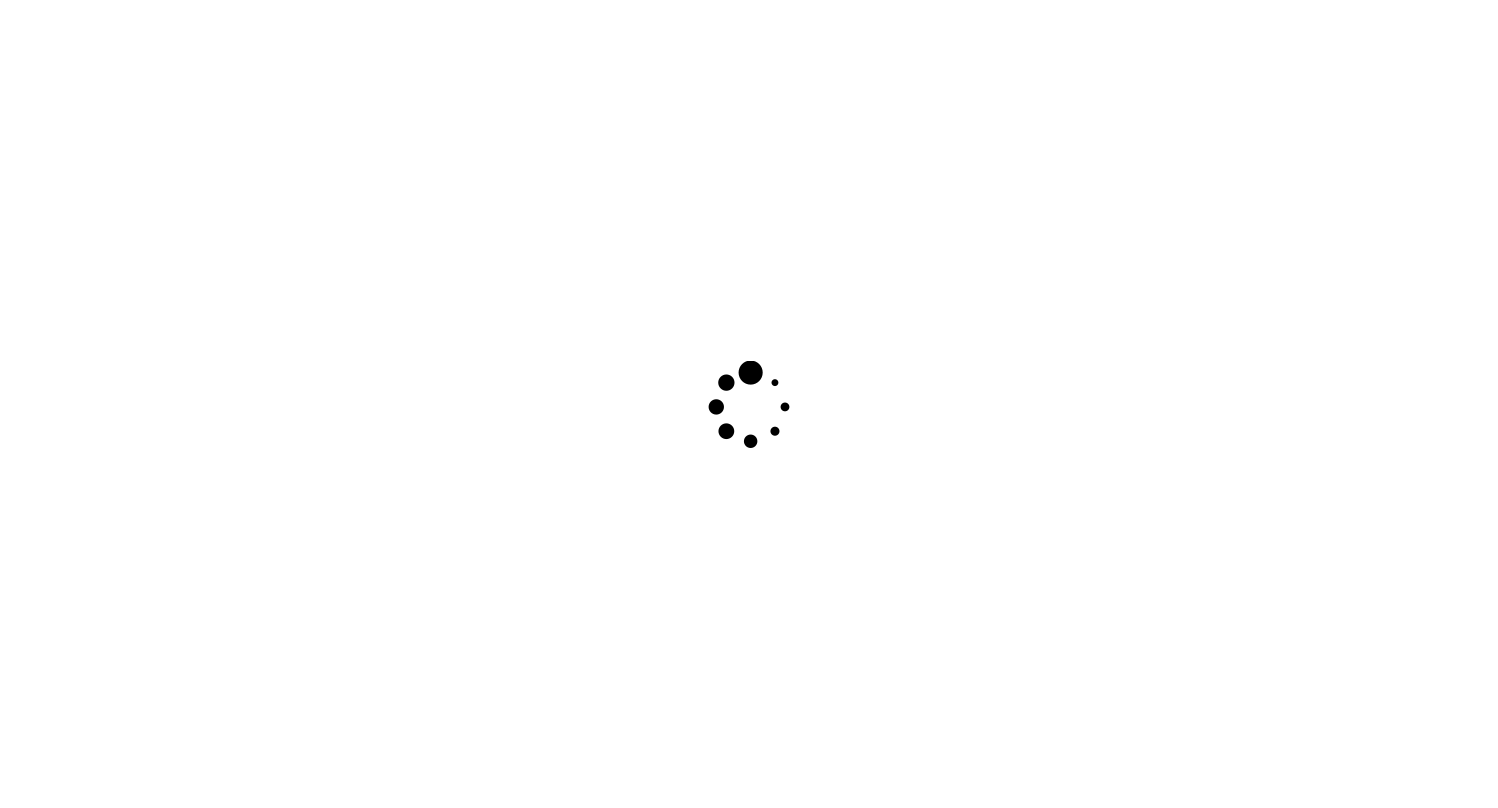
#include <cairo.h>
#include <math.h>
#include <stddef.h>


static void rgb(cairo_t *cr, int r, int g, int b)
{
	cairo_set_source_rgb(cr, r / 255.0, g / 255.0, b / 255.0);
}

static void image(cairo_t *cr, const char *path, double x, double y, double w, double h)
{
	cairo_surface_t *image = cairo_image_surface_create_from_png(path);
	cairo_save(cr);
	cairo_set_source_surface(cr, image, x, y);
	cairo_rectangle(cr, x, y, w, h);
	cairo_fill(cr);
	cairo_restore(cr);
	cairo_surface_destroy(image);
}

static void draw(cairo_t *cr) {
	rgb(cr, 255, 255, 255);
	cairo_paint(cr);
	image(cr, "image0.png", 708, 361, 82, 87);
}

int main(void) {
	cairo_surface_t *surface = cairo_image_surface_create(CAIRO_FORMAT_RGB24, 1498, 808);
	cairo_t *cr = cairo_create(surface);
	cairo_font_options_t *options = cairo_font_options_create();
	cairo_font_options_set_hint_metrics(options, CAIRO_HINT_METRICS_OFF);
	cairo_font_options_set_hint_style(options, CAIRO_HINT_STYLE_NONE);
	cairo_set_font_options(cr, options);
	cairo_set_miter_limit(cr, 4);
	draw(cr);
	cairo_surface_write_to_png(surface, "render.png");
	cairo_font_options_destroy(options);
	cairo_destroy(cr);
	cairo_surface_destroy(surface);
	return 0;
}
